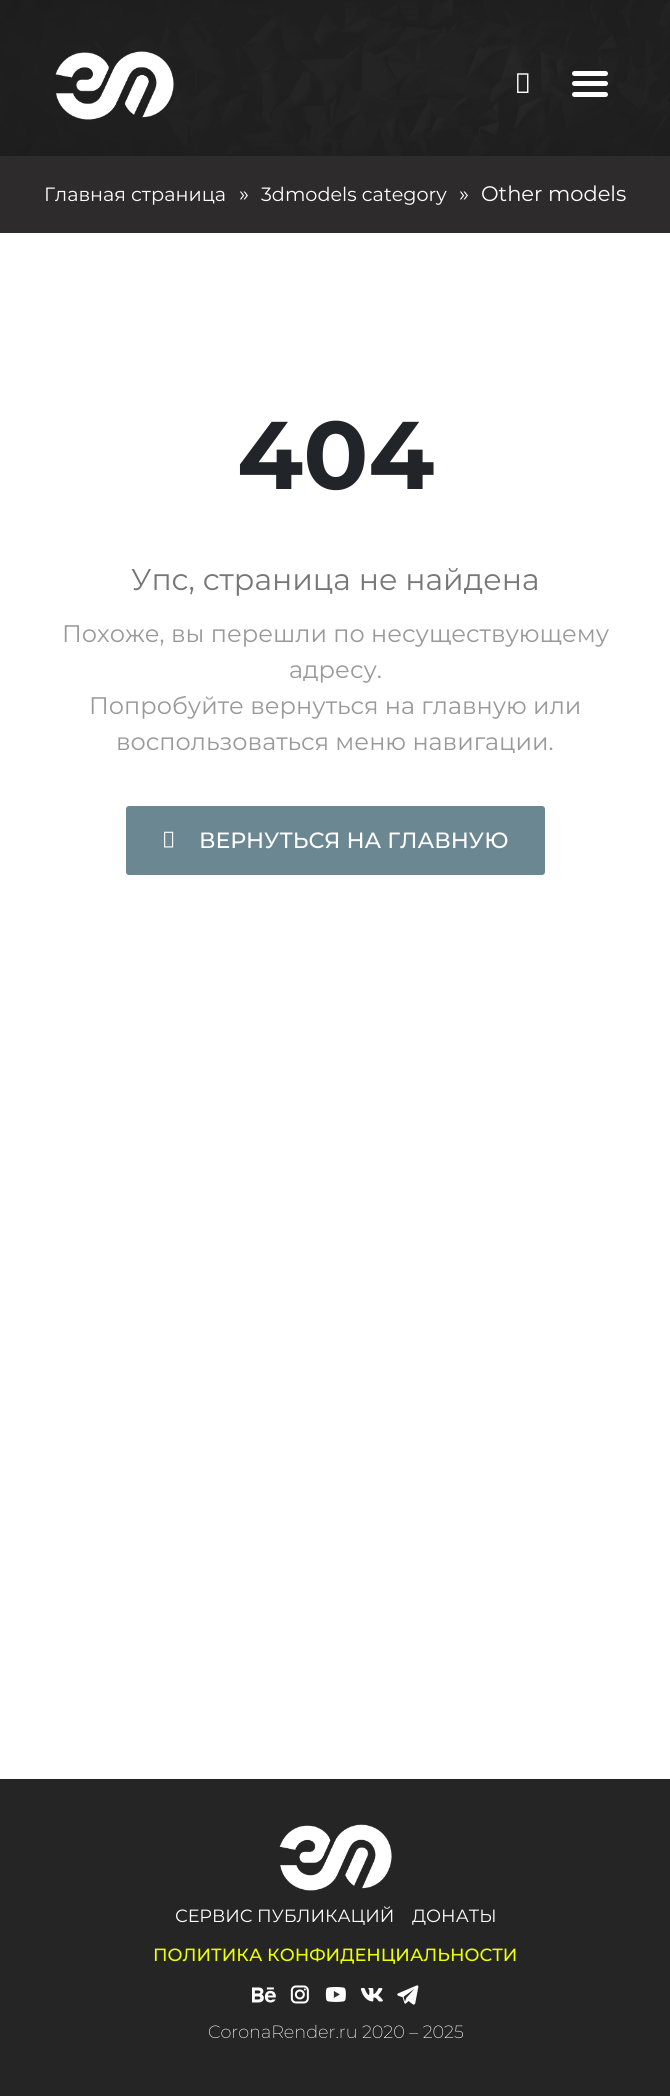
#include <cairo.h>
#include <math.h>
#include <stddef.h>


static void rgb(cairo_t *cr, int r, int g, int b)
{
	cairo_set_source_rgb(cr, r / 255.0, g / 255.0, b / 255.0);
}

static void face(cairo_t *cr, const char *family, double size, int italic, int bold)
{
	cairo_select_font_face(cr, family, italic ? CAIRO_FONT_SLANT_ITALIC : CAIRO_FONT_SLANT_NORMAL,
		bold ? CAIRO_FONT_WEIGHT_BOLD : CAIRO_FONT_WEIGHT_NORMAL);
	cairo_set_font_size(cr, size);
}

static void label(cairo_t *cr, double x, double y, const char *s)
{
	cairo_move_to(cr, x, y);
	cairo_show_text(cr, s);
}

static void rect(cairo_t *cr, double x, double y, double w, double h)
{
	cairo_rectangle(cr, x, y, w, h);
	cairo_fill(cr);
}

static void rrect(cairo_t *cr, double x, double y, double w, double h, double r)
{
	cairo_new_sub_path(cr);
	cairo_arc(cr, x + w - r, y + h - r, r, 0, M_PI / 2);
	cairo_arc(cr, x + r, y + h - r, r, M_PI / 2, M_PI);
	cairo_arc(cr, x + r, y + r, r, M_PI, 1.5 * M_PI);
	cairo_arc(cr, x + w - r, y + r, r, 1.5 * M_PI, 2 * M_PI);
	cairo_close_path(cr);
}

static void image(cairo_t *cr, const char *path, double x, double y, double w, double h)
{
	cairo_surface_t *image = cairo_image_surface_create_from_png(path);
	cairo_save(cr);
	cairo_set_source_surface(cr, image, x, y);
	cairo_rectangle(cr, x, y, w, h);
	cairo_fill(cr);
	cairo_restore(cr);
	cairo_surface_destroy(image);
}

static void draw(cairo_t *cr) {
	rgb(cr, 255, 255, 255);
	cairo_paint(cr);
	image(cr, "image0.png", 0, 0, 670, 156);
	image(cr, "image1.png", 55, 51, 119, 69);
	image(cr, "image2.png", 517, 73, 12, 20);
	rgb(cr, 255, 255, 255);
	rrect(cr, 572, 71, 36, 5, 2.5);
	cairo_fill(cr);
	rrect(cr, 572, 81, 36, 5, 2.5);
	cairo_fill(cr);
	rrect(cr, 572, 92, 36, 5, 2.5);
	cairo_fill(cr);
	rgb(cr, 45, 43, 43);
	rect(cr, 0, 156, 670, 77);
	face(cr, "Montserrat", 19.25, 0, 0);
	rgb(cr, 255, 255, 255);
	label(cr, 44, 201, "Главная страница");
	face(cr, "Montserrat", 21, 0, 0);
	label(cr, 239, 201, "»");
	face(cr, "Montserrat", 19.25, 0, 0);
	label(cr, 261, 201, "3dmodels category");
	face(cr, "Montserrat", 21, 0, 0);
	label(cr, 459, 201, "»");
	label(cr, 481, 201, "Other models");
	face(cr, "Montserrat", 96, 0, 1);
	rgb(cr, 33, 37, 41);
	label(cr, 237, 489, "404");
	face(cr, "Montserrat", 30, 0, 0);
	rgb(cr, 119, 119, 119);
	label(cr, 131, 590, "Упс, страница не найдена");
	face(cr, "Montserrat", 24, 0, 0);
	rgb(cr, 153, 153, 153);
	label(cr, 62, 642, "Похоже, вы перешли по несуществующему");
	label(cr, 289, 678, "адресу.");
	label(cr, 89, 714, "Попробуйте вернуться на главную или");
	label(cr, 116, 750, "воспользоваться меню навигации.");
	rgb(cr, 107, 135, 146);
	rrect(cr, 126, 806, 419, 69, 3);
	cairo_fill(cr);
	image(cr, "image3.png", 164, 831, 10, 17);
	face(cr, "Montserrat Medium", 22.1, 0, 0);
	rgb(cr, 255, 255, 255);
	label(cr, 199, 848, "ВЕРНУТЬСЯ НА ГЛАВНУЮ");
	rgb(cr, 37, 37, 37);
	rect(cr, 0, 1779, 670, 317);
	image(cr, "image4.png", 279, 1824, 113, 67);
	face(cr, "Montserrat", 17.7, 0, 0);
	rgb(cr, 255, 255, 255);
	label(cr, 175, 1922, "СЕРВИС ПУБЛИКАЦИЙ");
	label(cr, 412, 1922, "ДОНАТЫ");
	face(cr, "Montserrat Medium", 17.7, 0, 0);
	rgb(cr, 238, 255, 0);
	label(cr, 153, 1961, "ПОЛИТИКА КОНФИДЕНЦИАЛЬНОСТИ");
	image(cr, "image5.png", 252, 1987, 24, 16);
	image(cr, "image6.png", 290, 1985, 19, 19);
	image(cr, "image7.png", 325, 1987, 21, 15);
	image(cr, "image8.png", 360, 1988, 23, 14);
	image(cr, "image9.png", 397, 1985, 22, 20);
	face(cr, "Montserrat ExtraLight", 17.7, 0, 0);
	rgb(cr, 255, 255, 255);
	label(cr, 208, 2038, "CoronaRender.ru 2020 – 2025");
}

int main(void) {
	cairo_surface_t *surface = cairo_image_surface_create(CAIRO_FORMAT_RGB24, 670, 2096);
	cairo_t *cr = cairo_create(surface);
	cairo_font_options_t *options = cairo_font_options_create();
	cairo_font_options_set_hint_metrics(options, CAIRO_HINT_METRICS_OFF);
	cairo_font_options_set_hint_style(options, CAIRO_HINT_STYLE_NONE);
	cairo_set_font_options(cr, options);
	cairo_set_miter_limit(cr, 4);
	draw(cr);
	cairo_surface_write_to_png(surface, "render.png");
	cairo_font_options_destroy(options);
	cairo_destroy(cr);
	cairo_surface_destroy(surface);
	return 0;
}
